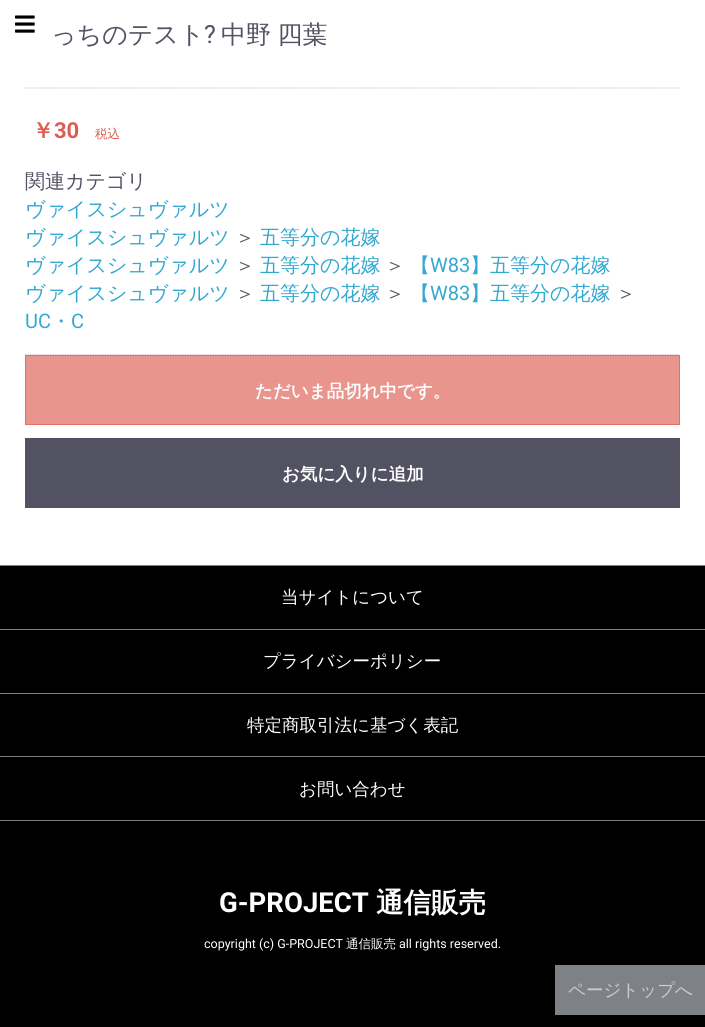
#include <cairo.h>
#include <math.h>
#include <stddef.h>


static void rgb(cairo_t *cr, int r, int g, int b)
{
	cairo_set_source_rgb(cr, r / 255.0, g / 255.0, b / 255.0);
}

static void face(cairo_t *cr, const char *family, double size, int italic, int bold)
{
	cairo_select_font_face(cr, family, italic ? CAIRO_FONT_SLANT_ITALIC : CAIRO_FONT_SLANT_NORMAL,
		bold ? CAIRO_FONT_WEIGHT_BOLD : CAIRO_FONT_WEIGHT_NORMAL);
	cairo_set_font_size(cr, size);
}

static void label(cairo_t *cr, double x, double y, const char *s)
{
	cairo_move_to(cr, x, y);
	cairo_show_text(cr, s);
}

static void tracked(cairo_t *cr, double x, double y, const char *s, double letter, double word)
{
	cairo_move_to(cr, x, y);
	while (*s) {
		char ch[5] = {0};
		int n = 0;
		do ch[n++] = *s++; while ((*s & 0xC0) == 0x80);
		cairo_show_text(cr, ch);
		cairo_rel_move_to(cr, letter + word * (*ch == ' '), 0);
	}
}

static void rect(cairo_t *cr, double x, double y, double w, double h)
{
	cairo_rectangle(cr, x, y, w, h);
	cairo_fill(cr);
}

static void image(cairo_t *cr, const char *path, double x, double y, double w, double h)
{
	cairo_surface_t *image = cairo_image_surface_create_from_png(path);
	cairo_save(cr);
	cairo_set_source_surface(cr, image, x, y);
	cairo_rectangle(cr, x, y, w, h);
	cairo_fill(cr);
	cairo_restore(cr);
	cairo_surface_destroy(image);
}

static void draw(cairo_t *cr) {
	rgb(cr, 255, 255, 255);
	cairo_paint(cr);
	image(cr, "image0.png", 15, 15, 20, 18);
	face(cr, "WenQuanYi Zen Hei Medium", 25, 0, 0);
	rgb(cr, 82, 82, 99);
	label(cr, 51, 43, "っちのテスト");
	face(cr, "Roboto", 25, 0, 0);
	label(cr, 204, 43, "?");
	face(cr, "WenQuanYi Zen Hei Medium", 25, 0, 0);
	tracked(cr, 221, 43, "中野 四葉", 0, -1);
	cairo_new_path(cr);
	cairo_move_to(cr, 25, 88);
	cairo_line_to(cr, 680, 88);
	rgb(cr, 204, 204, 204);
	cairo_set_line_width(cr, 1.2);
	cairo_set_dash(cr, (double[]){1.25, 1.25}, 2, 0);
	cairo_stroke(cr);
	face(cr, "WenQuanYi Zen Hei", 22, 0, 1);
	rgb(cr, 222, 93, 80);
	label(cr, 32, 138, "￥");
	face(cr, "Roboto", 22, 0, 1);
	label(cr, 54, 138, "30");
	face(cr, "WenQuanYi Zen Hei Medium", 12.5, 0, 0);
	label(cr, 95, 138, "税込");
	cairo_new_path(cr);
	cairo_move_to(cr, 25, 354.5);
	cairo_line_to(cr, 680, 354.5);
	rgb(cr, 204, 204, 204);
	cairo_stroke(cr);
	face(cr, "WenQuanYi Zen Hei Medium", 20, 0, 0);
	rgb(cr, 82, 82, 99);
	label(cr, 25, 188, "関連カテゴリ");
	rgb(cr, 51, 168, 208);
	label(cr, 25, 216, "ヴァイスシュヴァルツ");
	label(cr, 25, 244, "ヴァイスシュヴァルツ");
	rgb(cr, 82, 82, 99);
	label(cr, 235, 244, "＞");
	rgb(cr, 51, 168, 208);
	label(cr, 260, 244, "五等分の花嫁");
	label(cr, 25, 272, "ヴァイスシュヴァルツ");
	rgb(cr, 82, 82, 99);
	label(cr, 235, 272, "＞");
	rgb(cr, 51, 168, 208);
	label(cr, 260, 272, "五等分の花嫁");
	rgb(cr, 82, 82, 99);
	label(cr, 385, 272, "＞");
	rgb(cr, 51, 168, 208);
	label(cr, 410, 272, "【");
	face(cr, "Roboto", 20, 0, 0);
	label(cr, 430, 272, "W83");
	face(cr, "WenQuanYi Zen Hei Medium", 20, 0, 0);
	label(cr, 470, 272, "】五等分の花嫁");
	label(cr, 25, 300, "ヴァイスシュヴァルツ");
	rgb(cr, 82, 82, 99);
	label(cr, 235, 300, "＞");
	rgb(cr, 51, 168, 208);
	label(cr, 260, 300, "五等分の花嫁");
	rgb(cr, 82, 82, 99);
	label(cr, 385, 300, "＞");
	rgb(cr, 51, 168, 208);
	label(cr, 410, 300, "【");
	face(cr, "Roboto", 20, 0, 0);
	label(cr, 430, 300, "W83");
	face(cr, "WenQuanYi Zen Hei Medium", 20, 0, 0);
	label(cr, 470, 300, "】五等分の花嫁");
	rgb(cr, 82, 82, 99);
	label(cr, 616, 300, "＞");
	face(cr, "Roboto", 20, 0, 0);
	rgb(cr, 51, 168, 208);
	label(cr, 25, 328, "UC");
	face(cr, "WenQuanYi Zen Hei Medium", 20, 0, 0);
	label(cr, 51, 328, "・");
	face(cr, "Roboto", 20, 0, 0);
	label(cr, 71, 328, "C");
	cairo_set_source_rgba(cr, 0.871, 0.365, 0.314, 0.65);
	cairo_rectangle(cr, 25.5, 355.5, 654, 69);
	cairo_fill_preserve(cr);
	rgb(cr, 226, 113, 101);
	cairo_set_line_width(cr, 1);
	cairo_set_dash(cr, NULL, 0, 0);
	cairo_stroke(cr);
	face(cr, "WenQuanYi Zen Hei", 17.5, 0, 1);
	rgb(cr, 255, 255, 255);
	label(cr, 255, 397, "ただいま品切れ中です。");
	rgb(cr, 82, 82, 99);
	rect(cr, 25, 438, 655, 70);
	rgb(cr, 255, 255, 255);
	label(cr, 282, 480, "お気に入りに追加");
	rgb(cr, 0, 0, 0);
	rect(cr, 0, 566, 705, 461);
	rgb(cr, 125, 125, 125);
	rect(cr, 0, 565, 705, 1);
	rect(cr, 0, 629, 705, 1);
	face(cr, "WenQuanYi Zen Hei Medium", 17.5, 0, 0);
	rgb(cr, 255, 255, 255);
	label(cr, 281, 603, "当サイトについて");
	rgb(cr, 125, 125, 125);
	rect(cr, 0, 693, 705, 1);
	rgb(cr, 255, 255, 255);
	label(cr, 263, 667, "プライバシーポリシー");
	rgb(cr, 125, 125, 125);
	rect(cr, 0, 756, 705, 1);
	rgb(cr, 255, 255, 255);
	label(cr, 247, 731, "特定商取引法に基づく表記");
	rgb(cr, 125, 125, 125);
	rect(cr, 0, 820, 705, 1);
	rgb(cr, 255, 255, 255);
	label(cr, 299, 795, "お問い合わせ");
	face(cr, "Roboto", 27.5, 0, 1);
	label(cr, 219, 912, "G-PROJECT");
	face(cr, "WenQuanYi Zen Hei", 27.5, 0, 1);
	label(cr, 376, 912, "通信販売");
	face(cr, "Roboto", 12.5, 0, 0);
	label(cr, 204, 948, "copyright (c) G-PROJECT");
	face(cr, "WenQuanYi Zen Hei Medium", 12.5, 0, 0);
	label(cr, 346, 948, "通信販売");
	face(cr, "Roboto", 12.5, 0, 0);
	label(cr, 399, 948, "all rights reserved.");
	rgb(cr, 126, 130, 135);
	rect(cr, 555, 965, 150, 50);
	face(cr, "WenQuanYi Zen Hei Medium", 17.5, 0, 0);
	rgb(cr, 204, 204, 204);
	label(cr, 568, 996, "ページトップへ");
}

int main(void) {
	cairo_surface_t *surface = cairo_image_surface_create(CAIRO_FORMAT_RGB24, 705, 1027);
	cairo_t *cr = cairo_create(surface);
	cairo_font_options_t *options = cairo_font_options_create();
	cairo_font_options_set_hint_metrics(options, CAIRO_HINT_METRICS_OFF);
	cairo_font_options_set_hint_style(options, CAIRO_HINT_STYLE_NONE);
	cairo_set_font_options(cr, options);
	cairo_set_miter_limit(cr, 4);
	draw(cr);
	cairo_surface_write_to_png(surface, "render.png");
	cairo_font_options_destroy(options);
	cairo_destroy(cr);
	cairo_surface_destroy(surface);
	return 0;
}
